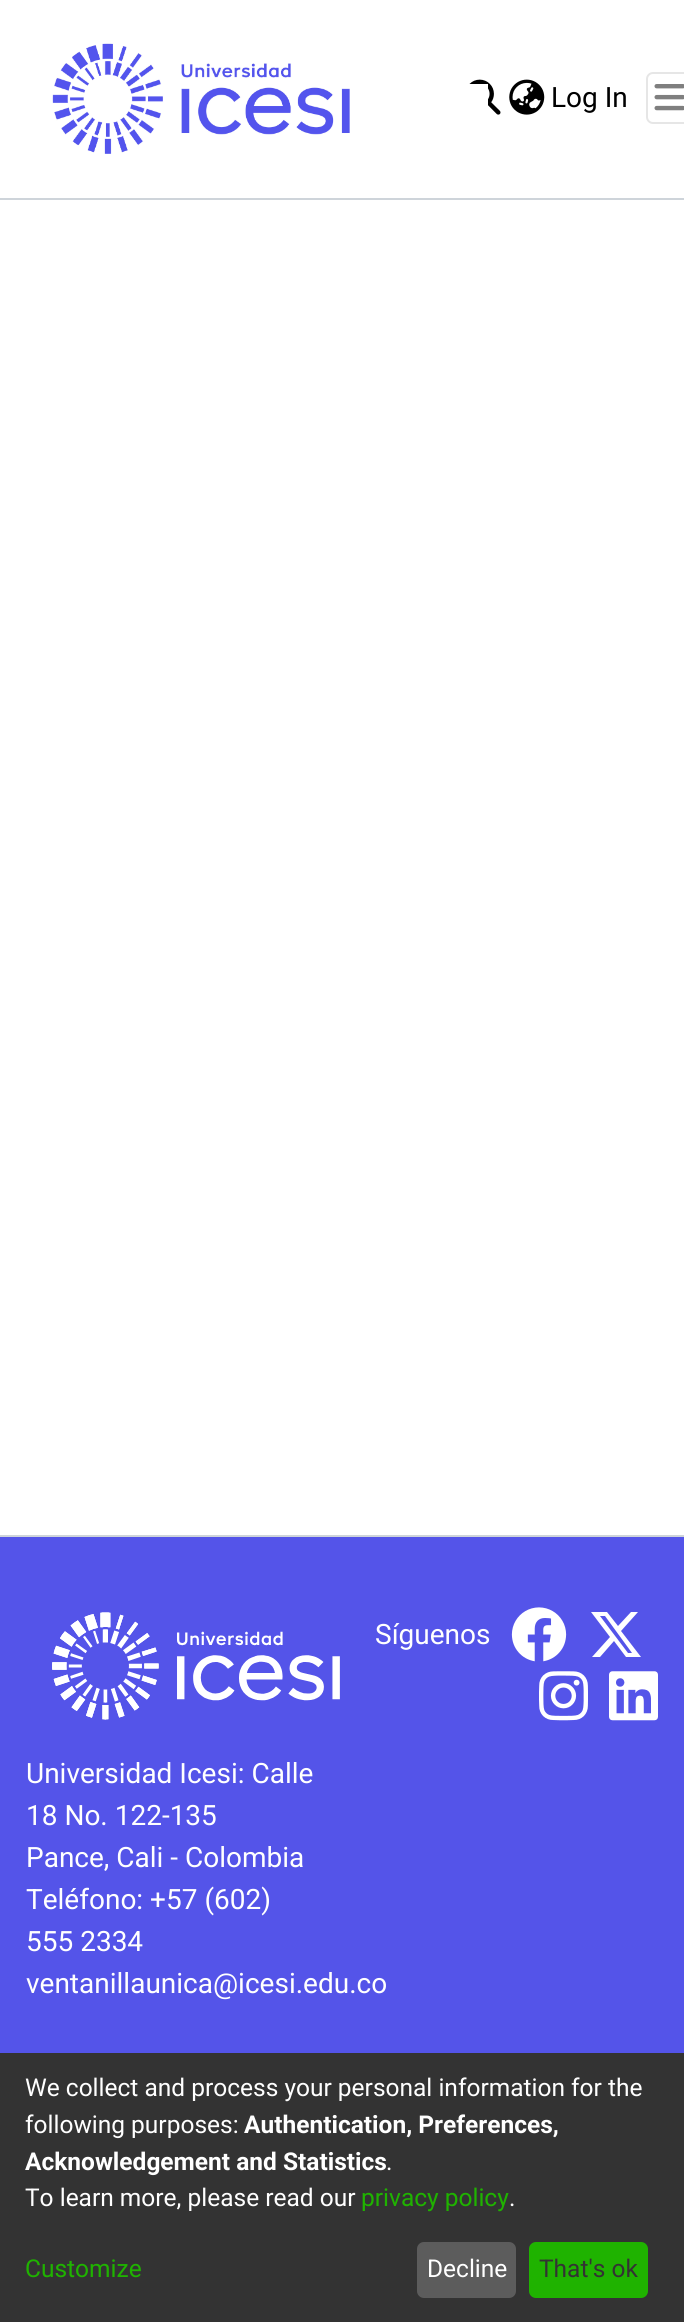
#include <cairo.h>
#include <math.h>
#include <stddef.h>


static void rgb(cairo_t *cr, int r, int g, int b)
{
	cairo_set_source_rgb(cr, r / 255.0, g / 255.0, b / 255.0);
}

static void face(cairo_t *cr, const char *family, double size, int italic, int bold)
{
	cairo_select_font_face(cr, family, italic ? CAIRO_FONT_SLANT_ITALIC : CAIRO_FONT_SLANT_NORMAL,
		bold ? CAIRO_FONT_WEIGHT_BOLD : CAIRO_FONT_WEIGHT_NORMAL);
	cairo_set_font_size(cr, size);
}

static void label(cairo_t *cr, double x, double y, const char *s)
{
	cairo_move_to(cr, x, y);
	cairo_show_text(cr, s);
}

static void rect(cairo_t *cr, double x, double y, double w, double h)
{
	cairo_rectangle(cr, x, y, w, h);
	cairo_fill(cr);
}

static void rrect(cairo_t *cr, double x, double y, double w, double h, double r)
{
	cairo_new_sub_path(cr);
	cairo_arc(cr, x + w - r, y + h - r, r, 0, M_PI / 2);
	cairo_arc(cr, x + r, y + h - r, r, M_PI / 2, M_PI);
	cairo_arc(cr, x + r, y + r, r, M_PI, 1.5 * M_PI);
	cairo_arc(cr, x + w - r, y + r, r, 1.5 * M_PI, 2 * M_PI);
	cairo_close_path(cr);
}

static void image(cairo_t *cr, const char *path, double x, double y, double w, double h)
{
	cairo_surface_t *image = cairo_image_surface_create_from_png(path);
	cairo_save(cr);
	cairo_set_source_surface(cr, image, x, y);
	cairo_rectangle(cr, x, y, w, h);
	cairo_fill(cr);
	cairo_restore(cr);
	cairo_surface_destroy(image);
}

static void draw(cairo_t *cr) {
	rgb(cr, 255, 255, 255);
	cairo_paint(cr);
	rgb(cr, 206, 212, 218);
	rect(cr, 0, 198, 684, 2);
	image(cr, "image0.png", 52, 43, 298, 111);
	image(cr, "image1.png", 469, 79, 32, 36);
	rgb(cr, 255, 255, 255);
	rect(cr, 469, 84, 19, 25);
	image(cr, "image2.png", 509, 79, 36, 36);
	face(cr, "Roboto", 28, 0, 0);
	rgb(cr, 0, 0, 0);
	label(cr, 551, 107, "Log In");
	rrect(cr, 647, 73, 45, 50, 6);
	rgb(cr, 230, 230, 230);
	cairo_stroke(cr);
	image(cr, "image3.png", 654, 84, 30, 27);
	rgb(cr, 84, 84, 233);
	rect(cr, 0, 1537, 684, 516);
	rgb(cr, 206, 212, 218);
	rect(cr, 0, 1535, 684, 2);
	rgb(cr, 255, 255, 255);
	label(cr, 375, 1644, "Síguenos");
	image(cr, "image4.png", 511, 1607, 56, 55);
	cairo_new_path(cr);
	cairo_move_to(cr, 631, 1612);
	cairo_line_to(cr, 638, 1612);
	cairo_line_to(cr, 621, 1631);
	cairo_line_to(cr, 641, 1657);
	cairo_line_to(cr, 626, 1657);
	cairo_line_to(cr, 614, 1641);
	cairo_line_to(cr, 600, 1657);
	cairo_line_to(cr, 592, 1657);
	cairo_line_to(cr, 610, 1637);
	cairo_line_to(cr, 591, 1612);
	cairo_line_to(cr, 607, 1612);
	cairo_line_to(cr, 618, 1626);
	cairo_close_path(cr);
	cairo_move_to(cr, 628, 1653);
	cairo_line_to(cr, 632, 1653);
	cairo_line_to(cr, 605, 1616);
	cairo_line_to(cr, 600, 1616);
	cairo_close_path(cr);
	cairo_fill(cr);
	image(cr, "image5.png", 539, 1671, 49, 50);
	image(cr, "image6.png", 609, 1671, 49, 50);
	image(cr, "image7.png", 52, 1612, 288, 108);
	label(cr, 26, 1783, "Universidad Icesi: Calle");
	label(cr, 26, 1825, "18 No. 122-135");
	label(cr, 26, 1867, "Pance, Cali - Colombia");
	label(cr, 26, 1909, "Teléfono: +57 (602)");
	label(cr, 26, 1951, "555 2334");
	label(cr, 26, 1993, "ventanillaunica@icesi.edu.co");
	rgb(cr, 51, 51, 51);
	rect(cr, 0, 2053, 684, 269);
	face(cr, "Roboto", 24.5, 0, 0);
	rgb(cr, 255, 255, 255);
	label(cr, 25, 2096, "We collect and process your personal information for the");
	label(cr, 25, 2133, "following purposes:");
	face(cr, "Roboto", 24.5, 0, 1);
	label(cr, 244, 2133, "Authentication, Preferences,");
	label(cr, 25, 2170, "Acknowledgement and Statistics");
	face(cr, "Roboto", 24.5, 0, 0);
	label(cr, 386, 2170, ".");
	label(cr, 25, 2206, "To learn more, please read our");
	rgb(cr, 31, 179, 0);
	label(cr, 361, 2206, "privacy policy");
	rgb(cr, 255, 255, 255);
	label(cr, 509, 2206, ".");
	rgb(cr, 31, 179, 0);
	label(cr, 25, 2277, "Customize");
	rgb(cr, 92, 92, 92);
	rrect(cr, 417, 2242, 99, 56, 7);
	cairo_fill(cr);
	rgb(cr, 255, 255, 255);
	label(cr, 427, 2277, "Decline");
	rgb(cr, 31, 179, 0);
	rrect(cr, 529, 2242, 119, 56, 7);
	cairo_fill(cr);
	rgb(cr, 51, 51, 51);
	label(cr, 539, 2277, "That's ok");
}

int main(void) {
	cairo_surface_t *surface = cairo_image_surface_create(CAIRO_FORMAT_RGB24, 684, 2322);
	cairo_t *cr = cairo_create(surface);
	cairo_font_options_t *options = cairo_font_options_create();
	cairo_font_options_set_hint_metrics(options, CAIRO_HINT_METRICS_OFF);
	cairo_font_options_set_hint_style(options, CAIRO_HINT_STYLE_NONE);
	cairo_set_font_options(cr, options);
	cairo_set_miter_limit(cr, 4);
	draw(cr);
	cairo_surface_write_to_png(surface, "render.png");
	cairo_font_options_destroy(options);
	cairo_destroy(cr);
	cairo_surface_destroy(surface);
	return 0;
}
